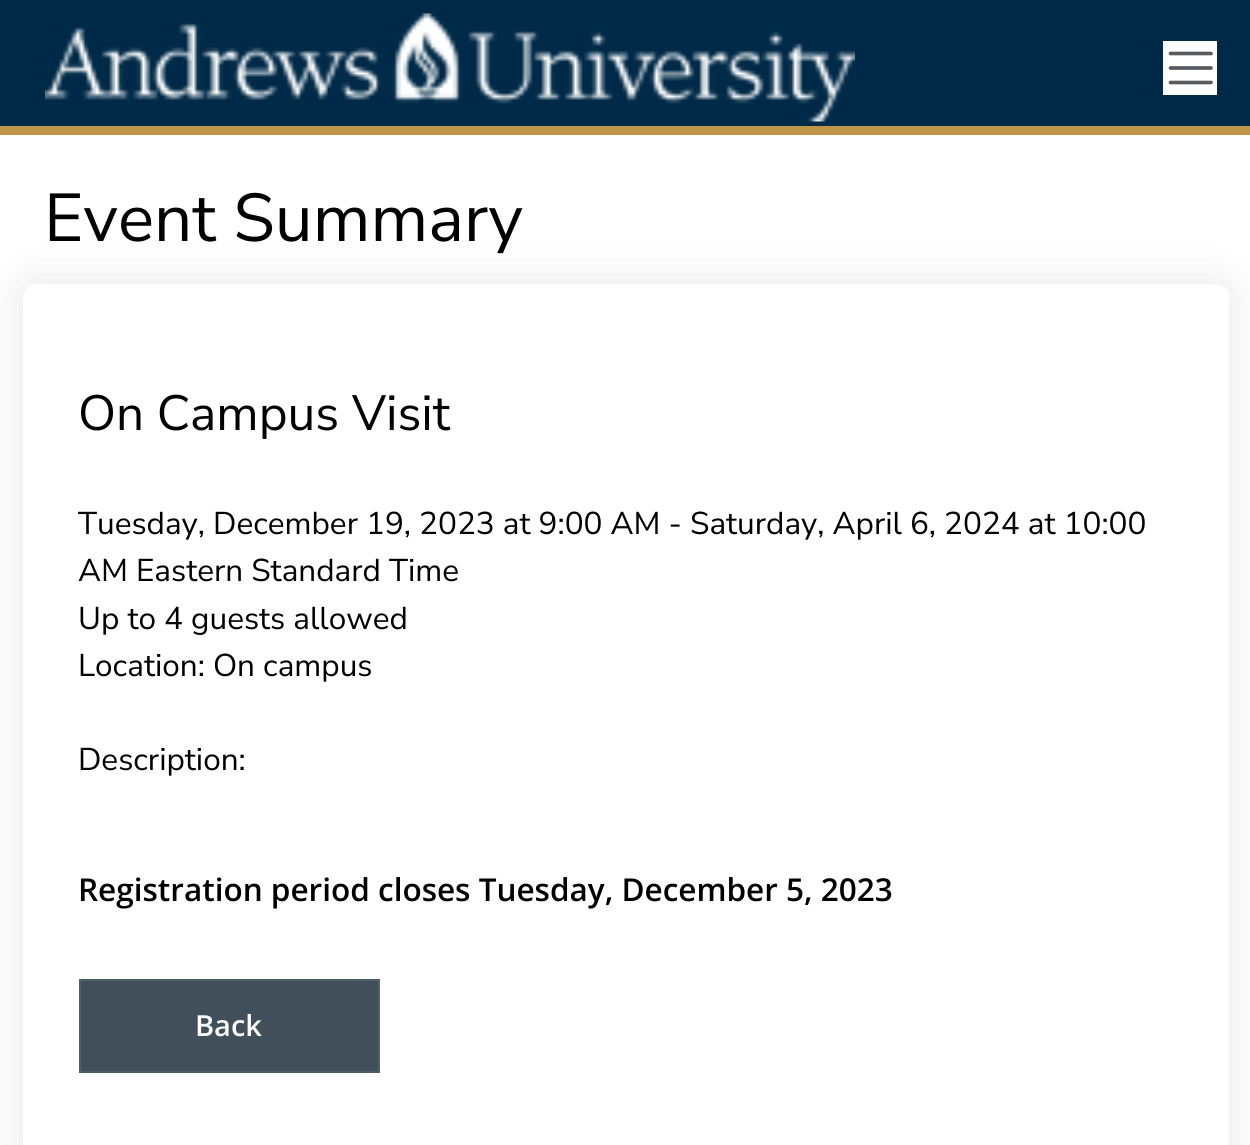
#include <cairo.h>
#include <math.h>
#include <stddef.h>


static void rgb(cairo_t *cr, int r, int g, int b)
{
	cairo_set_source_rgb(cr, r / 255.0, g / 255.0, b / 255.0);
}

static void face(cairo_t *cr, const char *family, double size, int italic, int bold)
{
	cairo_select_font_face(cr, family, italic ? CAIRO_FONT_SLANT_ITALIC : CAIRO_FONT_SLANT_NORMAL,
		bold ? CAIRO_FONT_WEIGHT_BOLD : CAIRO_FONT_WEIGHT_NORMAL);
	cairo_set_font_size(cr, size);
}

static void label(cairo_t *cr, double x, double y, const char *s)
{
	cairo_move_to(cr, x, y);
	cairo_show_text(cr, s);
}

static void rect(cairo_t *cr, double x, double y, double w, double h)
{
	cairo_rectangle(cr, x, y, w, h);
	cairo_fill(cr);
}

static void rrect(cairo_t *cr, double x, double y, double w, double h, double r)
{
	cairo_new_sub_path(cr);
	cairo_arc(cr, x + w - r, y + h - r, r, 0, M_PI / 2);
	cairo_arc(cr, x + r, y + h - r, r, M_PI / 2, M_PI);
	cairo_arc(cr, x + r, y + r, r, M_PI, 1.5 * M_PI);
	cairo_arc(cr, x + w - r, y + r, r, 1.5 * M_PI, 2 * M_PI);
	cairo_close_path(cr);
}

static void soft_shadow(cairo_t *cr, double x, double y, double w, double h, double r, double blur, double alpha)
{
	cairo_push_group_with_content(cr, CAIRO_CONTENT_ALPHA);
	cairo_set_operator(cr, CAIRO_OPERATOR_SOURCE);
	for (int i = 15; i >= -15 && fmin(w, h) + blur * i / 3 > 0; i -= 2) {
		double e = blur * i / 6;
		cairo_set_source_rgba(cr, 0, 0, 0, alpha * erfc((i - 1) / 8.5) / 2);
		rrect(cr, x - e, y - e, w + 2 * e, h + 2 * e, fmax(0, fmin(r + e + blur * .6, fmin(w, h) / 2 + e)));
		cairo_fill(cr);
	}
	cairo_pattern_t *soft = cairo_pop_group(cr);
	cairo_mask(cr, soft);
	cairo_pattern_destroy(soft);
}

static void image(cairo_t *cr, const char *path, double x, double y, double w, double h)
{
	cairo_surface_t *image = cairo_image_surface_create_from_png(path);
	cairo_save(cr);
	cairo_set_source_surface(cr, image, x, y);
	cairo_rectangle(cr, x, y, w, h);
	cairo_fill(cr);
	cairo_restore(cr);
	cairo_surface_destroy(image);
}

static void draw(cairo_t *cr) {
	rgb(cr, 255, 255, 255);
	cairo_paint(cr);
	rgb(cr, 0, 42, 72);
	rect(cr, 0, 0, 1250, 126);
	rgb(cr, 190, 149, 73);
	rect(cr, 0, 126, 1250, 9);
	image(cr, "image0.png", 45, 13, 810, 109);
	rgb(cr, 255, 255, 255);
	rect(cr, 1163, 41, 54, 54);
	cairo_new_path(cr);
	cairo_move_to(cr, 1170.5, 53.5);
	cairo_line_to(cr, 1211, 53.5);
	cairo_move_to(cr, 1170.5, 68);
	cairo_line_to(cr, 1211, 68);
	cairo_move_to(cr, 1170.5, 82.5);
	cairo_line_to(cr, 1211, 82.5);
	rgb(cr, 89, 92, 95);
	cairo_set_line_width(cr, 3.7);
	cairo_set_line_cap(cr, CAIRO_LINE_CAP_ROUND);
	cairo_stroke(cr);
	rgb(cr, 0, 0, 0);
	soft_shadow(cr, 23, 284, 1206, 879, 14, 22.5, 0.1);
	face(cr, "Nunito Sans", 67.5, 0, 0);
	rgb(cr, 0, 0, 0);
	label(cr, 44, 241, "Event Summary");
	rgb(cr, 255, 255, 255);
	rrect(cr, 23, 284, 1206, 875, 14);
	cairo_fill(cr);
	face(cr, "Nunito Sans", 49.5, 0, 0);
	rgb(cr, 0, 0, 0);
	label(cr, 78, 430, "On Campus Visit");
	face(cr, "Nunito Sans", 31.5, 0, 0);
	label(cr, 78, 534, "Tuesday, December 19, 2023 at 9:00 AM - Saturday, April 6, 2024 at 10:00");
	label(cr, 78, 581, "AM Eastern Standard Time");
	label(cr, 78, 629, "Up to 4 guests allowed");
	label(cr, 78, 676, "Location: On campus");
	label(cr, 78, 770, "Description:");
	face(cr, "Open Sans SemiBold", 31.5, 0, 0);
	label(cr, 78, 901, "Registration period closes Tuesday, December 5, 2023");
	rgb(cr, 64, 79, 89);
	cairo_rectangle(cr, 80, 980, 299, 92);
	cairo_fill_preserve(cr);
	rgb(cr, 77, 96, 106);
	cairo_set_line_width(cr, 2);
	cairo_set_line_cap(cr, CAIRO_LINE_CAP_BUTT);
	cairo_stroke(cr);
	face(cr, "Open Sans SemiBold", 29, 0, 0);
	rgb(cr, 255, 255, 255);
	label(cr, 195, 1036, "Back");
}

int main(void) {
	cairo_surface_t *surface = cairo_image_surface_create(CAIRO_FORMAT_RGB24, 1250, 1145);
	cairo_t *cr = cairo_create(surface);
	cairo_font_options_t *options = cairo_font_options_create();
	cairo_font_options_set_hint_metrics(options, CAIRO_HINT_METRICS_OFF);
	cairo_font_options_set_hint_style(options, CAIRO_HINT_STYLE_NONE);
	cairo_set_font_options(cr, options);
	cairo_set_miter_limit(cr, 4);
	draw(cr);
	cairo_surface_write_to_png(surface, "render.png");
	cairo_font_options_destroy(options);
	cairo_destroy(cr);
	cairo_surface_destroy(surface);
	return 0;
}
